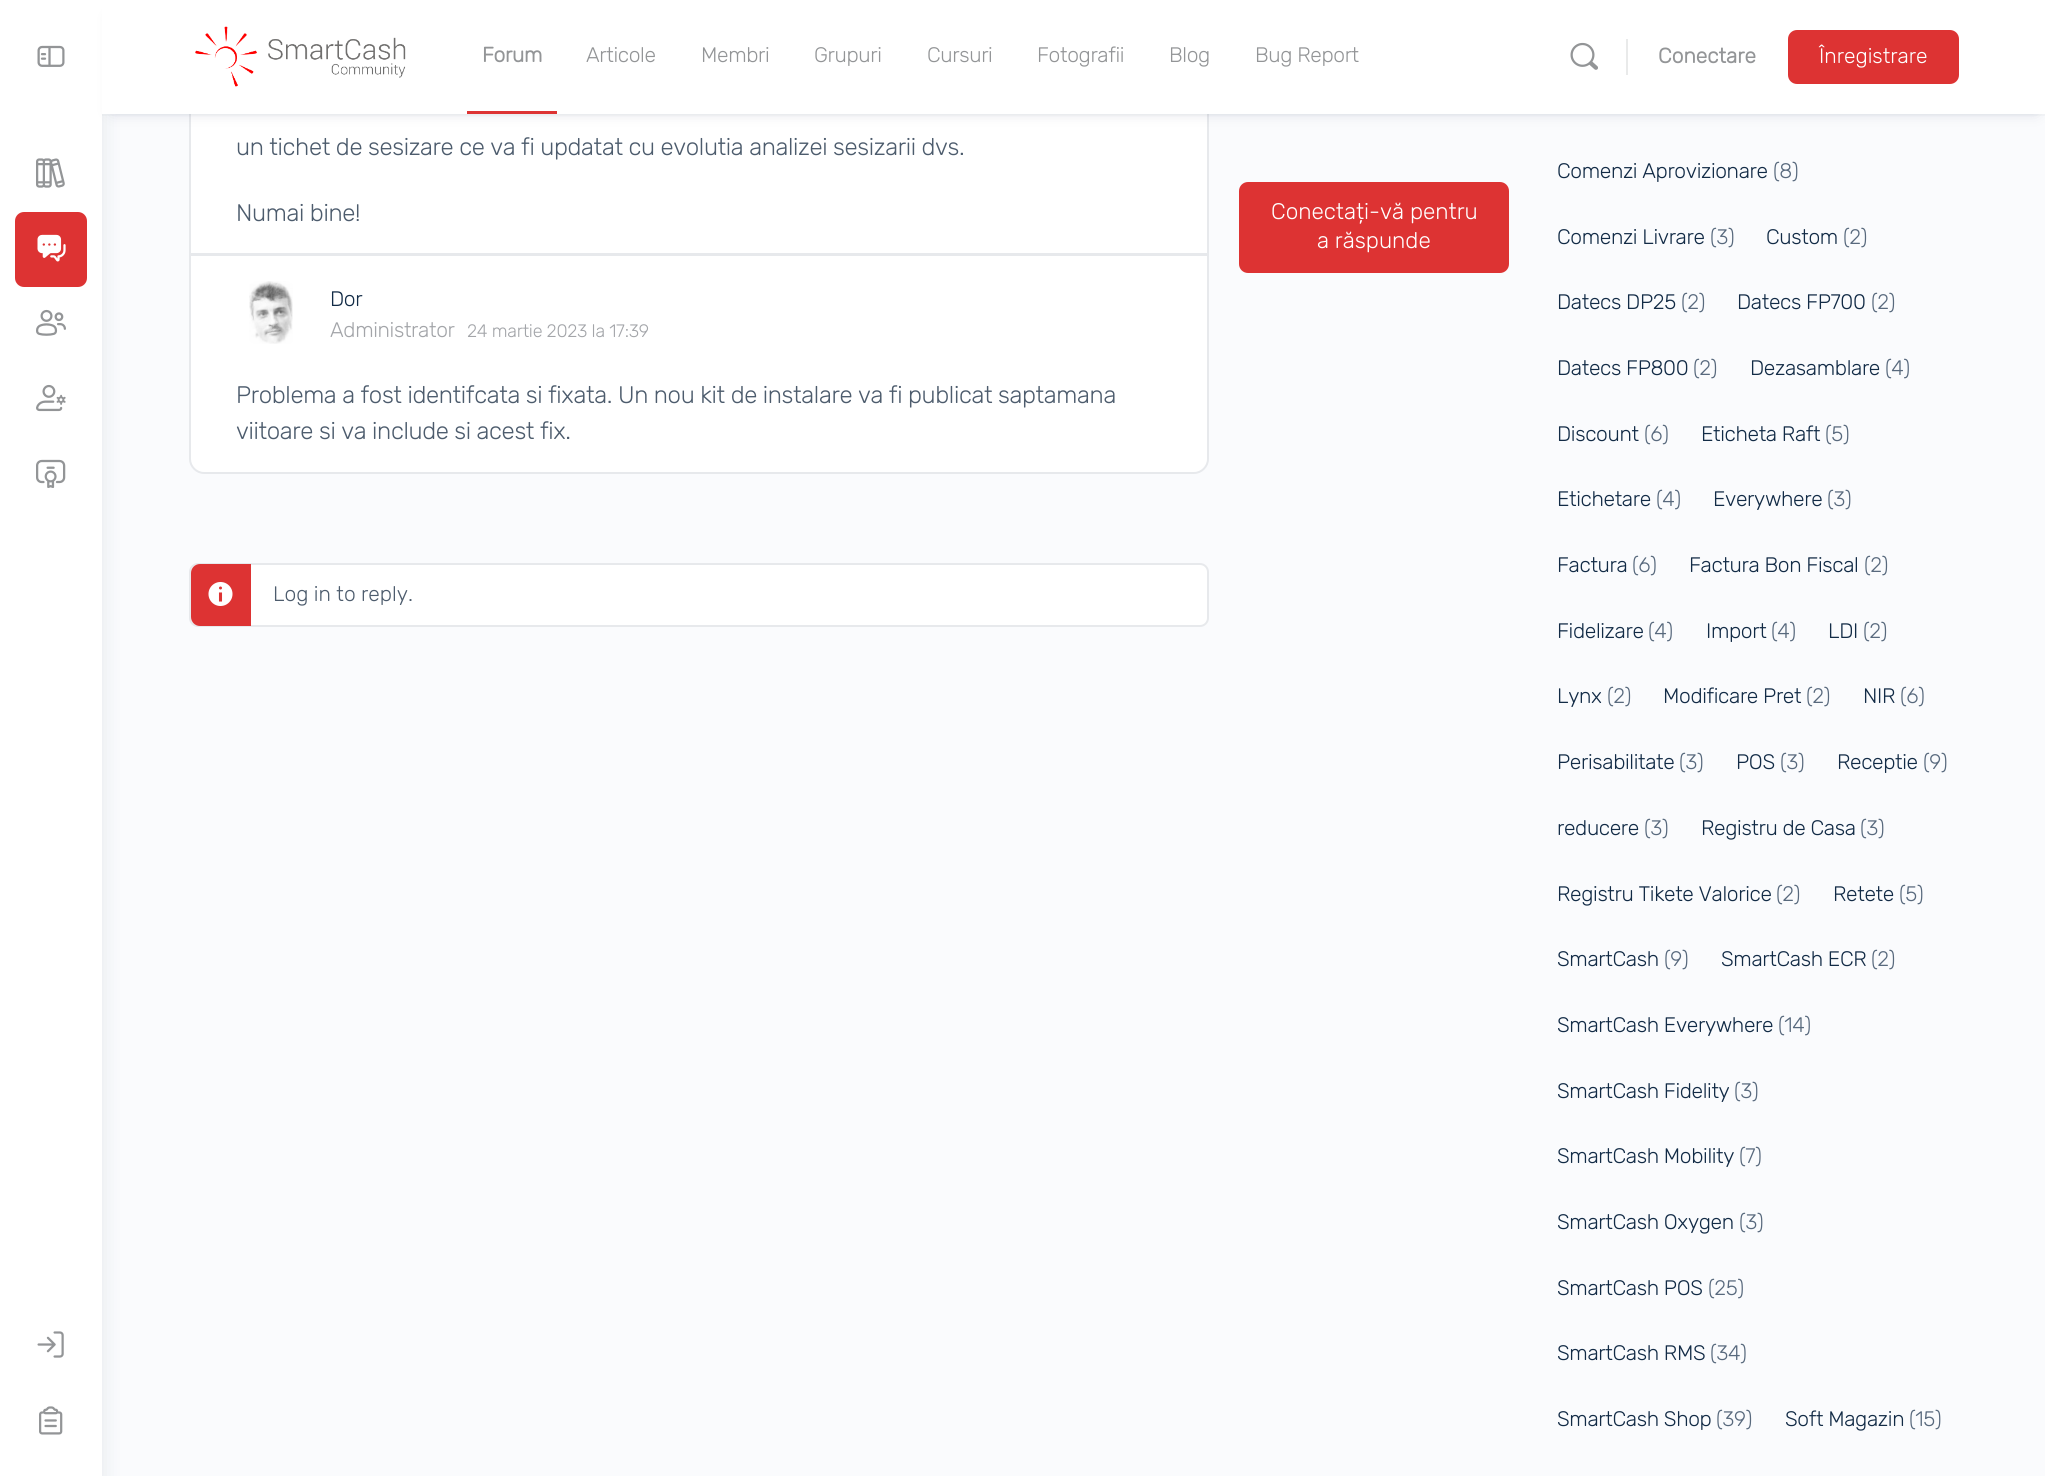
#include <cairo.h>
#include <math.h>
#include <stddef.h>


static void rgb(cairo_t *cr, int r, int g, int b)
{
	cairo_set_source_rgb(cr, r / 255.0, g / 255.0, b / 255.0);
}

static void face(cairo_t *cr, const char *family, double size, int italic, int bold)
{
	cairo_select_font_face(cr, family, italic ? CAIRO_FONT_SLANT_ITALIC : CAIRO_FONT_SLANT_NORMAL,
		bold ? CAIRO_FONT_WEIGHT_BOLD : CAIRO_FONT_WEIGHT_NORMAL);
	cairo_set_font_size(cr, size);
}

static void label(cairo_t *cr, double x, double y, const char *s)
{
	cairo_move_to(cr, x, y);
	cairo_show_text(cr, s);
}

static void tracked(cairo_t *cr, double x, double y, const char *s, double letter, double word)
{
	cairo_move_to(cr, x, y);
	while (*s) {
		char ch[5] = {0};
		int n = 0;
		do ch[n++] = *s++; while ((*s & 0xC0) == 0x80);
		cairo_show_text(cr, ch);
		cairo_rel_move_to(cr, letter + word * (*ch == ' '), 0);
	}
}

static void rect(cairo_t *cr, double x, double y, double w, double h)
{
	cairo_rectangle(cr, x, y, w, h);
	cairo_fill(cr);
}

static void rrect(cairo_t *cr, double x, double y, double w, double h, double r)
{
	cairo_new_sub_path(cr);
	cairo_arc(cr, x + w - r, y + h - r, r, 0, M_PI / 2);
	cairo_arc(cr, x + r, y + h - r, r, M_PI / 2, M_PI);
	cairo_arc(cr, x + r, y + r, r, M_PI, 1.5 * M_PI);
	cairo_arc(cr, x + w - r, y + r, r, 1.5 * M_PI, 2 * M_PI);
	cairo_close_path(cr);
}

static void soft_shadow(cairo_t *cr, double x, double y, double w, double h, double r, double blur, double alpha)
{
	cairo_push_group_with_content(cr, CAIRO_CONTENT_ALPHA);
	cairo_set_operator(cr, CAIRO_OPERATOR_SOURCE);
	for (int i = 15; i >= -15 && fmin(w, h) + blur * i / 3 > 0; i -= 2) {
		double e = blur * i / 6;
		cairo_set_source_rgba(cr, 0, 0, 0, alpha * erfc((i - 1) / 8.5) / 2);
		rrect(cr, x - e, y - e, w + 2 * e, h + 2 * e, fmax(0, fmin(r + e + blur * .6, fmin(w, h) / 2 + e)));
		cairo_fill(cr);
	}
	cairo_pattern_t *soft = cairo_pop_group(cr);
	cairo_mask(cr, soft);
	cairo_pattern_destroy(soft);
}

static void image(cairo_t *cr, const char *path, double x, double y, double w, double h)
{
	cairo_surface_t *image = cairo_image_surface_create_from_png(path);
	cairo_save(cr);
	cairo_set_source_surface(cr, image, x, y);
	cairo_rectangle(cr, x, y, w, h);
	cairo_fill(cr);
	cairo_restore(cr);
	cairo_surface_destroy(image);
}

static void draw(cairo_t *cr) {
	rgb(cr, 250, 251, 253);
	cairo_paint(cr);
	rgb(cr, 18, 43, 70);
	soft_shadow(cr, 0, 5, 102, 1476, 0, 10, 0.1);
	rgb(cr, 255, 255, 255);
	rect(cr, 0, 0, 102, 1476);
	image(cr, "image0.png", 37, 45, 28, 22);
	image(cr, "image1.png", 36, 158, 29, 30);
	rgb(cr, 221, 51, 51);
	rrect(cr, 15, 212, 72, 75, 9);
	cairo_fill(cr);
	image(cr, "image2.png", 37, 234, 29, 28);
	image(cr, "image3.png", 36, 309, 30, 27);
	image(cr, "image4.png", 36, 384, 30, 28);
	image(cr, "image5.png", 36, 459, 30, 29);
	image(cr, "image6.png", 37, 1331, 27, 27);
	image(cr, "image7.png", 39, 1406, 24, 29);
	rgb(cr, 255, 255, 255);
	rect(cr, 191, 114, 1016, 139);
	cairo_rectangle(cr, 190, -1, 1018, 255);
	rgb(cr, 231, 233, 236);
	cairo_stroke(cr);
	rgb(cr, 65, 71, 108);
	soft_shadow(cr, 113, 18, 1923, 93, 0, 7.5, 0.25);
	cairo_set_source_rgba(cr, 0.545, 0.553, 0.616, 0.05);
	rect(cr, 102, 114, 1943, 2);
	rgb(cr, 255, 255, 255);
	rect(cr, 102, 0, 1943, 114);
	image(cr, "image8.png", 195, 26, 211, 61);
	rgb(cr, 221, 51, 51);
	rect(cr, 467, 111, 90, 3);
	face(cr, "Rubik", 21, 0, 1);
	rgb(cr, 147, 149, 151);
	tracked(cr, 482, 62, "Forum", -0.35, 0);
	face(cr, "Rubik Light", 21, 0, 0);
	tracked(cr, 586, 62, "Articole", -0.35, 0);
	tracked(cr, 701, 62, "Membri", -0.35, 0);
	tracked(cr, 814, 62, "Grupuri", -0.35, 0);
	tracked(cr, 927, 62, "Cursuri", -0.35, 0);
	tracked(cr, 1037, 62, "Fotografii", -0.35, 0);
	tracked(cr, 1169, 62, "Blog", -0.35, 0);
	tracked(cr, 1255, 62, "Bug Report", -0.35, 0);
	image(cr, "image9.png", 1570, 42, 28, 28);
	rgb(cr, 233, 234, 234);
	rect(cr, 1626, 39, 2, 36);
	face(cr, "Rubik", 21, 0, 1);
	rgb(cr, 147, 149, 151);
	label(cr, 1658, 63, "Conectare");
	rgb(cr, 221, 51, 51);
	rrect(cr, 1789, 31, 169, 52, 8);
	cairo_fill_preserve(cr);
	cairo_stroke(cr);
	face(cr, "Rubik Light", 21, 0, 0);
	rgb(cr, 255, 255, 255);
	label(cr, 1819, 63, "Înregistrare");
	face(cr, "Rubik Light", 24, 0, 0);
	rgb(cr, 77, 92, 109);
	tracked(cr, 236, 155, "un tichet de sesizare ce va fi updatat cu evolutia analizei sesizarii dvs.", -0.35, 0);
	tracked(cr, 236, 221, "Numai bine!", -0.35, 0);
	rgb(cr, 255, 255, 255);
	cairo_new_path(cr);
	cairo_move_to(cr, 190, 255);
	cairo_line_to(cr, 1208, 255);
	cairo_line_to(cr, 1208, 459);
	cairo_curve_to(cr, 1208, 466.5, 1201.5, 473, 1194, 473);
	cairo_line_to(cr, 204, 473);
	cairo_curve_to(cr, 196.5, 473, 190, 466.5, 190, 459);
	cairo_close_path(cr);
	cairo_fill_preserve(cr);
	rgb(cr, 231, 233, 236);
	cairo_stroke(cr);
	image(cr, "image10.png", 249, 281, 44, 63);
	face(cr, "Rubik Light", 21, 0, 0);
	rgb(cr, 18, 43, 70);
	tracked(cr, 330, 306, "Dor", -0.35, 0);
	rgb(cr, 163, 165, 169);
	tracked(cr, 330, 337, "Administrator", -0.35, 0);
	face(cr, "Rubik Light", 18, 0, 0);
	tracked(cr, 467, 337, "24 martie 2023 la 17:39", -0.25, 0);
	face(cr, "Rubik Light", 24, 0, 0);
	rgb(cr, 77, 92, 109);
	tracked(cr, 236, 403, "Problema a fost identifcata si fixata. Un nou kit de instalare va fi publicat saptamana", -0.35, 0);
	tracked(cr, 236, 439, "viitoare si va include si acest fix.", -0.35, 0);
	rgb(cr, 255, 255, 255);
	rrect(cr, 190, 564, 1018, 62, 8);
	cairo_fill_preserve(cr);
	rgb(cr, 231, 233, 236);
	cairo_stroke(cr);
	rgb(cr, 221, 51, 51);
	cairo_new_path(cr);
	cairo_move_to(cr, 200, 564);
	cairo_line_to(cr, 251, 564);
	cairo_line_to(cr, 251, 626);
	cairo_line_to(cr, 200, 626);
	cairo_curve_to(cr, 195, 626, 191, 622, 191, 617);
	cairo_line_to(cr, 191, 573);
	cairo_curve_to(cr, 191, 568, 195, 564, 200, 564);
	cairo_close_path(cr);
	cairo_fill(cr);
	image(cr, "image11.png", 208, 582, 25, 24);
	face(cr, "Rubik Light", 21, 0, 0);
	rgb(cr, 77, 92, 109);
	label(cr, 273, 601, "Log in to reply.");
	rgb(cr, 221, 51, 51);
	rrect(cr, 1240, 183, 268, 89, 8);
	cairo_fill_preserve(cr);
	cairo_stroke(cr);
	face(cr, "Rubik Light", 22.5, 0, 0);
	rgb(cr, 255, 255, 255);
	label(cr, 1271, 219, "Conectați-vă pentru");
	label(cr, 1317, 248, "a răspunde");
	face(cr, "Rubik Light", 21, 0, 0);
	rgb(cr, 18, 43, 70);
	tracked(cr, 1557, 178, "Comenzi Aprovizionare", -0.35, 0);
	rgb(cr, 88, 105, 125);
	tracked(cr, 1773, 178, "(8)", -0.35, 0);
	rgb(cr, 18, 43, 70);
	tracked(cr, 1557, 244, "Comenzi Livrare", -0.35, 0);
	rgb(cr, 88, 105, 125);
	tracked(cr, 1710, 244, "(3)", -0.35, 0);
	rgb(cr, 18, 43, 70);
	tracked(cr, 1766, 244, "Custom", -0.35, 0);
	rgb(cr, 88, 105, 125);
	tracked(cr, 1843, 244, "(2)", -0.35, 0);
	rgb(cr, 18, 43, 70);
	tracked(cr, 1557, 309, "Datecs DP25", -0.35, 0);
	rgb(cr, 88, 105, 125);
	tracked(cr, 1681, 309, "(2)", -0.35, 0);
	rgb(cr, 18, 43, 70);
	tracked(cr, 1737, 309, "Datecs FP700", -0.35, 0);
	rgb(cr, 88, 105, 125);
	tracked(cr, 1871, 309, "(2)", -0.35, 0);
	rgb(cr, 18, 43, 70);
	tracked(cr, 1557, 375, "Datecs FP800", -0.35, 0);
	rgb(cr, 88, 105, 125);
	tracked(cr, 1693, 375, "(2)", -0.35, 0);
	rgb(cr, 18, 43, 70);
	tracked(cr, 1750, 375, "Dezasamblare", -0.35, 0);
	rgb(cr, 88, 105, 125);
	tracked(cr, 1885, 375, "(4)", -0.35, 0);
	rgb(cr, 18, 43, 70);
	tracked(cr, 1557, 441, "Discount", -0.35, 0);
	rgb(cr, 88, 105, 125);
	tracked(cr, 1644, 441, "(6)", -0.35, 0);
	rgb(cr, 18, 43, 70);
	tracked(cr, 1701, 441, "Eticheta Raft", -0.35, 0);
	rgb(cr, 88, 105, 125);
	tracked(cr, 1825, 441, "(5)", -0.35, 0);
	rgb(cr, 18, 43, 70);
	tracked(cr, 1557, 506, "Etichetare", -0.35, 0);
	rgb(cr, 88, 105, 125);
	tracked(cr, 1656, 506, "(4)", -0.35, 0);
	rgb(cr, 18, 43, 70);
	tracked(cr, 1713, 506, "Everywhere", -0.35, 0);
	rgb(cr, 88, 105, 125);
	tracked(cr, 1827, 506, "(3)", -0.35, 0);
	rgb(cr, 18, 43, 70);
	tracked(cr, 1557, 572, "Factura", -0.35, 0);
	rgb(cr, 88, 105, 125);
	tracked(cr, 1632, 572, "(6)", -0.35, 0);
	rgb(cr, 18, 43, 70);
	tracked(cr, 1689, 572, "Factura Bon Fiscal", -0.35, 0);
	rgb(cr, 88, 105, 125);
	tracked(cr, 1864, 572, "(2)", -0.35, 0);
	rgb(cr, 18, 43, 70);
	tracked(cr, 1557, 638, "Fidelizare", -0.35, 0);
	rgb(cr, 88, 105, 125);
	tracked(cr, 1648, 638, "(4)", -0.35, 0);
	rgb(cr, 18, 43, 70);
	tracked(cr, 1706, 638, "Import", -0.35, 0);
	rgb(cr, 88, 105, 125);
	tracked(cr, 1771, 638, "(4)", -0.35, 0);
	rgb(cr, 18, 43, 70);
	tracked(cr, 1828, 638, "LDI", -0.35, 0);
	rgb(cr, 88, 105, 125);
	tracked(cr, 1863, 638, "(2)", -0.35, 0);
	rgb(cr, 18, 43, 70);
	tracked(cr, 1557, 703, "Lynx", -0.35, 0);
	rgb(cr, 88, 105, 125);
	tracked(cr, 1607, 703, "(2)", -0.35, 0);
	rgb(cr, 18, 43, 70);
	tracked(cr, 1663, 703, "Modificare Pret", -0.35, 0);
	rgb(cr, 88, 105, 125);
	tracked(cr, 1806, 703, "(2)", -0.35, 0);
	rgb(cr, 18, 43, 70);
	tracked(cr, 1863, 703, "NIR", -0.35, 0);
	rgb(cr, 88, 105, 125);
	tracked(cr, 1900, 703, "(6)", -0.35, 0);
	rgb(cr, 18, 43, 70);
	tracked(cr, 1557, 769, "Perisabilitate", -0.35, 0);
	rgb(cr, 88, 105, 125);
	tracked(cr, 1679, 769, "(3)", -0.35, 0);
	rgb(cr, 18, 43, 70);
	tracked(cr, 1736, 769, "POS", -0.35, 0);
	rgb(cr, 88, 105, 125);
	tracked(cr, 1780, 769, "(3)", -0.35, 0);
	rgb(cr, 18, 43, 70);
	tracked(cr, 1837, 769, "Receptie", -0.35, 0);
	rgb(cr, 88, 105, 125);
	tracked(cr, 1923, 769, "(9)", -0.35, 0);
	rgb(cr, 18, 43, 70);
	tracked(cr, 1557, 835, "reducere", -0.35, 0);
	rgb(cr, 88, 105, 125);
	tracked(cr, 1644, 835, "(3)", -0.35, 0);
	rgb(cr, 18, 43, 70);
	tracked(cr, 1701, 835, "Registru de Casa", -0.35, 0);
	rgb(cr, 88, 105, 125);
	tracked(cr, 1860, 835, "(3)", -0.35, 0);
	rgb(cr, 18, 43, 70);
	tracked(cr, 1557, 901, "Registru Tikete Valorice", -0.35, 0);
	rgb(cr, 88, 105, 125);
	tracked(cr, 1776, 901, "(2)", -0.35, 0);
	rgb(cr, 18, 43, 70);
	tracked(cr, 1833, 901, "Retete", -0.35, 0);
	rgb(cr, 88, 105, 125);
	tracked(cr, 1899, 901, "(5)", -0.35, 0);
	rgb(cr, 18, 43, 70);
	tracked(cr, 1557, 966, "SmartCash", -0.35, 0);
	rgb(cr, 88, 105, 125);
	tracked(cr, 1664, 966, "(9)", -0.35, 0);
	rgb(cr, 18, 43, 70);
	tracked(cr, 1721, 966, "SmartCash ECR", -0.35, 0);
	rgb(cr, 88, 105, 125);
	tracked(cr, 1871, 966, "(2)", -0.35, 0);
	rgb(cr, 18, 43, 70);
	tracked(cr, 1557, 1032, "SmartCash Everywhere", -0.35, 0);
	rgb(cr, 88, 105, 125);
	tracked(cr, 1778, 1032, "(14)", -0.35, 0);
	rgb(cr, 18, 43, 70);
	tracked(cr, 1557, 1098, "SmartCash Fidelity", -0.35, 0);
	rgb(cr, 88, 105, 125);
	tracked(cr, 1734, 1098, "(3)", -0.35, 0);
	rgb(cr, 18, 43, 70);
	tracked(cr, 1557, 1163, "SmartCash Mobility", -0.35, 0);
	rgb(cr, 88, 105, 125);
	tracked(cr, 1739, 1163, "(7)", -0.35, 0);
	rgb(cr, 18, 43, 70);
	tracked(cr, 1557, 1229, "SmartCash Oxygen", -0.35, 0);
	rgb(cr, 88, 105, 125);
	tracked(cr, 1739, 1229, "(3)", -0.35, 0);
	rgb(cr, 18, 43, 70);
	tracked(cr, 1557, 1295, "SmartCash POS", -0.35, 0);
	rgb(cr, 88, 105, 125);
	tracked(cr, 1708, 1295, "(25)", -0.35, 0);
	rgb(cr, 18, 43, 70);
	tracked(cr, 1557, 1360, "SmartCash RMS", -0.35, 0);
	rgb(cr, 88, 105, 125);
	tracked(cr, 1710, 1360, "(34)", -0.35, 0);
	rgb(cr, 18, 43, 70);
	tracked(cr, 1557, 1426, "SmartCash Shop", -0.35, 0);
	rgb(cr, 88, 105, 125);
	tracked(cr, 1716, 1426, "(39)", -0.35, 0);
	rgb(cr, 18, 43, 70);
	tracked(cr, 1785, 1426, "Soft Magazin", -0.35, 0);
	rgb(cr, 88, 105, 125);
	tracked(cr, 1909, 1426, "(15)", -0.35, 0);
}

int main(void) {
	cairo_surface_t *surface = cairo_image_surface_create(CAIRO_FORMAT_RGB24, 2045, 1476);
	cairo_t *cr = cairo_create(surface);
	cairo_font_options_t *options = cairo_font_options_create();
	cairo_font_options_set_hint_metrics(options, CAIRO_HINT_METRICS_OFF);
	cairo_font_options_set_hint_style(options, CAIRO_HINT_STYLE_NONE);
	cairo_set_font_options(cr, options);
	cairo_set_miter_limit(cr, 4);
	draw(cr);
	cairo_surface_write_to_png(surface, "render.png");
	cairo_font_options_destroy(options);
	cairo_destroy(cr);
	cairo_surface_destroy(surface);
	return 0;
}
